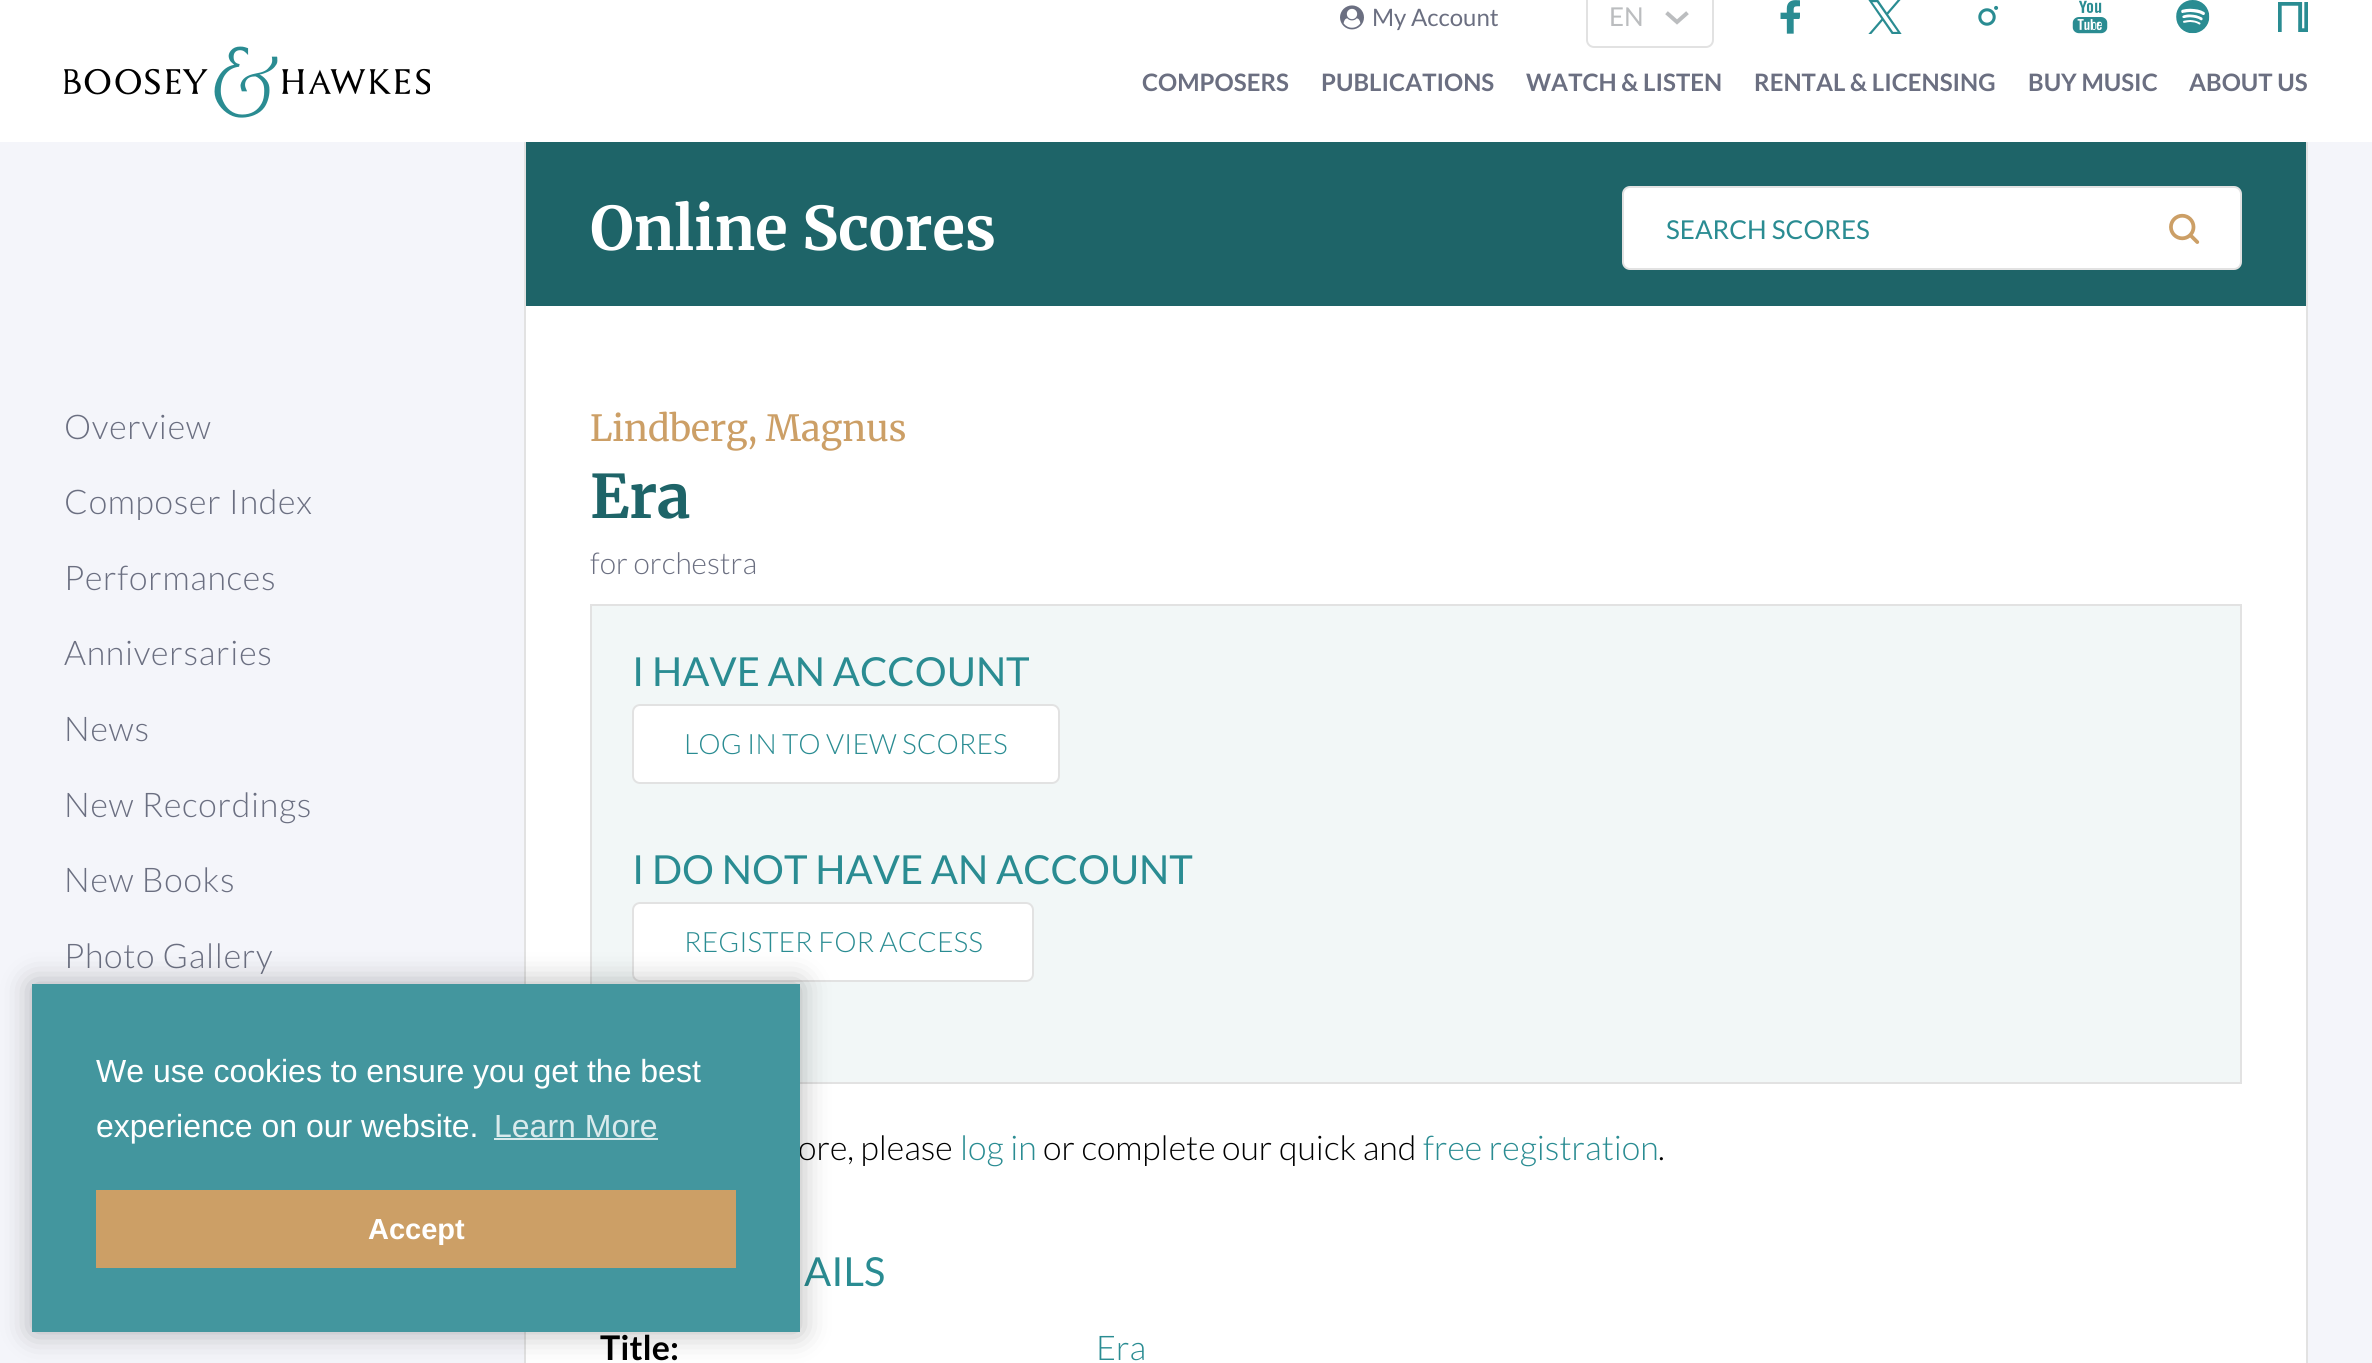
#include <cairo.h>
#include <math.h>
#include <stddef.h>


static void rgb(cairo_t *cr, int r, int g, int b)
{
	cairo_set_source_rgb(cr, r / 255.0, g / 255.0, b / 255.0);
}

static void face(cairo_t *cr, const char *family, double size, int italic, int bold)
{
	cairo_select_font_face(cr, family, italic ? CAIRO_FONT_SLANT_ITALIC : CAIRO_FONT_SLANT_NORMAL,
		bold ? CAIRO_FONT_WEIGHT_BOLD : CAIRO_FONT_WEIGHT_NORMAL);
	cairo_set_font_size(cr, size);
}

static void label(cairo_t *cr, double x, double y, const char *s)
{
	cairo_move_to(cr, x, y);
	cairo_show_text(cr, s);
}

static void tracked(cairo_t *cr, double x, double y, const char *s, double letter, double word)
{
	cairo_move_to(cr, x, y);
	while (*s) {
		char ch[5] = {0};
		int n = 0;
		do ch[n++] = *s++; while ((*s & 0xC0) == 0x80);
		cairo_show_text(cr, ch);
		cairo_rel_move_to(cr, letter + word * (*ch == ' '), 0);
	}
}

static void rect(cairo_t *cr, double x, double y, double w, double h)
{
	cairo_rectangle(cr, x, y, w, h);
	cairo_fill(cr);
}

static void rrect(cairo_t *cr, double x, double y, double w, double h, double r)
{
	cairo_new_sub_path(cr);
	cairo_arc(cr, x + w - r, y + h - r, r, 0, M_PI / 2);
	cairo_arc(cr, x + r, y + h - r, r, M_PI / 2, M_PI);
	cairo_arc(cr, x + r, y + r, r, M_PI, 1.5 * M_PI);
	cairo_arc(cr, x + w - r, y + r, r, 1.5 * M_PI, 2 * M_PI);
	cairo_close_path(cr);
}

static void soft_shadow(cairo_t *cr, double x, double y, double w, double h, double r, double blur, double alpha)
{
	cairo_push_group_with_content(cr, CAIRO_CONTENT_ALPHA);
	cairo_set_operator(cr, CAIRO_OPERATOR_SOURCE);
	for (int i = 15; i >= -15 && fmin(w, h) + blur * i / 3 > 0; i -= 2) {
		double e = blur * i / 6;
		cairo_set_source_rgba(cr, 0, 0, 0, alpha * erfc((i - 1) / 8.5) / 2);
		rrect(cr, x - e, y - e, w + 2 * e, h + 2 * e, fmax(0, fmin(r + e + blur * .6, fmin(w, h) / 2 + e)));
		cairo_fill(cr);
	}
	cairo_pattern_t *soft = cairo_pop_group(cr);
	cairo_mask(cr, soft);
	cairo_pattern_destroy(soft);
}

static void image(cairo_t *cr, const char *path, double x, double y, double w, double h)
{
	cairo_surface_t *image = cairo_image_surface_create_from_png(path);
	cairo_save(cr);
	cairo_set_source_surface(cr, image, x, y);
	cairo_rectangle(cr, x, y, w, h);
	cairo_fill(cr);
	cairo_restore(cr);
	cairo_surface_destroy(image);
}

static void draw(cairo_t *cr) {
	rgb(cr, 244, 245, 250);
	cairo_paint(cr);
	rgb(cr, 255, 255, 255);
	rect(cr, 0, 0, 2372, 142);
	image(cr, "image0.png", 1340, 5, 24, 25);
	face(cr, "Lato", 24, 0, 0);
	rgb(cr, 107, 111, 129);
	label(cr, 1372, 26, "My Account");
	rrect(cr, 1587, -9, 126, 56, 7);
	rgb(cr, 226, 226, 226);
	cairo_stroke(cr);
	face(cr, "Lato", 26, 0, 0);
	rgb(cr, 187, 189, 191);
	label(cr, 1609, 26, "EN");
	cairo_new_path(cr);
	cairo_move_to(cr, 1686, 14);
	cairo_line_to(cr, 1677, 22);
	cairo_line_to(cr, 1668, 14);
	cairo_set_line_width(cr, 4);
	cairo_set_line_cap(cr, CAIRO_LINE_CAP_SQUARE);
	cairo_stroke(cr);
	image(cr, "image1.png", 1780, 0, 20, 34);
	image(cr, "image2.png", 1868, 0, 34, 34);
	image(cr, "image3.png", 1978, 5, 21, 21);
	image(cr, "image4.png", 2072, 0, 36, 34);
	image(cr, "image5.png", 2176, 0, 34, 34);
	image(cr, "image6.png", 2278, 2, 30, 30);
	image(cr, "image7.png", 64, 46, 366, 72);
	face(cr, "Lato", 24, 0, 1);
	rgb(cr, 107, 111, 129);
	label(cr, 1142, 91, "COMPOSERS");
	label(cr, 1321, 91, "PUBLICATIONS");
	label(cr, 1526, 91, "WATCH & LISTEN");
	label(cr, 1754, 91, "RENTAL & LICENSING");
	label(cr, 2028, 91, "BUY MUSIC");
	label(cr, 2189, 91, "ABOUT US");
	face(cr, "Lato Light", 34, 0, 0);
	tracked(cr, 64, 439, "Overview", 0.75, 0);
	tracked(cr, 64, 514, "Composer Index", 0.75, 0);
	tracked(cr, 64, 590, "Performances", 0.75, 0);
	tracked(cr, 64, 665, "Anniversaries", 0.75, 0);
	tracked(cr, 64, 741, "News", 0.75, 0);
	tracked(cr, 64, 817, "New Recordings", 0.75, 0);
	tracked(cr, 64, 892, "New Books", 0.75, 0);
	tracked(cr, 64, 968, "Photo Gallery", 0.75, 0);
	rgb(cr, 255, 255, 255);
	rect(cr, 526, 306, 1780, 1057);
	rgb(cr, 226, 226, 226);
	rect(cr, 2306, 142, 2, 1221);
	rect(cr, 524, 142, 2, 1221);
	rgb(cr, 30, 100, 104);
	rect(cr, 526, 142, 1780, 164);
	face(cr, "Merriweather", 60, 0, 1);
	rgb(cr, 255, 255, 255);
	label(cr, 590, 250, "Online Scores");
	rrect(cr, 1623, 187, 618, 82, 7);
	cairo_fill_preserve(cr);
	rgb(cr, 226, 226, 226);
	cairo_set_line_width(cr, 2);
	cairo_set_line_cap(cr, CAIRO_LINE_CAP_BUTT);
	cairo_stroke(cr);
	face(cr, "Lato", 26, 0, 0);
	rgb(cr, 42, 140, 146);
	label(cr, 1666, 239, "SEARCH SCORES");
	image(cr, "image8.png", 2169, 213, 31, 31);
	face(cr, "Merriweather", 36, 0, 0);
	rgb(cr, 204, 159, 102);
	label(cr, 590, 441, "Lindberg, Magnus");
	face(cr, "Merriweather", 60, 0, 1);
	rgb(cr, 30, 100, 104);
	label(cr, 590, 518, "Era");
	face(cr, "Lato Light", 30, 0, 0);
	rgb(cr, 107, 111, 129);
	label(cr, 590, 574, "for orchestra");
	rgb(cr, 242, 247, 247);
	cairo_rectangle(cr, 591, 605, 1650, 478);
	cairo_fill_preserve(cr);
	rgb(cr, 226, 226, 226);
	cairo_stroke(cr);
	face(cr, "Lato", 40, 0, 0);
	rgb(cr, 42, 140, 146);
	label(cr, 632, 686, "I HAVE AN ACCOUNT");
	rgb(cr, 255, 255, 255);
	rrect(cr, 633, 705, 426, 78, 7);
	cairo_fill_preserve(cr);
	rgb(cr, 226, 226, 226);
	cairo_stroke(cr);
	face(cr, "Lato Light", 28, 0, 0);
	rgb(cr, 42, 140, 146);
	label(cr, 684, 754, "LOG IN TO VIEW SCORES");
	face(cr, "Lato", 40, 0, 0);
	label(cr, 632, 884, "I DO NOT HAVE AN ACCOUNT");
	rgb(cr, 255, 255, 255);
	rrect(cr, 633, 903, 400, 78, 7);
	cairo_fill_preserve(cr);
	rgb(cr, 226, 226, 226);
	cairo_stroke(cr);
	face(cr, "Lato Light", 28, 0, 0);
	rgb(cr, 42, 140, 146);
	label(cr, 684, 952, "REGISTER FOR ACCESS");
	face(cr, "Lato Light", 34, 0, 0);
	rgb(cr, 0, 0, 0);
	label(cr, 798, 1160, "ore, please");
	rgb(cr, 42, 140, 146);
	label(cr, 960, 1160, "log in");
	rgb(cr, 0, 0, 0);
	label(cr, 1043, 1160, "or complete our quick and");
	rgb(cr, 42, 140, 146);
	label(cr, 1423, 1160, "free registration");
	rgb(cr, 0, 0, 0);
	label(cr, 1658, 1160, ".");
	face(cr, "Lato", 40, 0, 0);
	rgb(cr, 42, 140, 146);
	label(cr, 804, 1286, "AILS");
	face(cr, "Lato", 34, 0, 1);
	rgb(cr, 0, 0, 0);
	label(cr, 600, 1360, "Title:");
	face(cr, "Lato Light", 34, 0, 0);
	rgb(cr, 42, 140, 146);
	label(cr, 1096, 1360, "Era");
	rgb(cr, 0, 0, 0);
	soft_shadow(cr, 32, 984, 768, 348, 0, 15, 0.3);
	rgb(cr, 67, 150, 158);
	rect(cr, 32, 984, 768, 348);
	face(cr, "Liberation Sans", 32, 0, 0);
	rgb(cr, 255, 255, 255);
	label(cr, 96, 1082, "We use cookies to ensure you get the best");
	label(cr, 96, 1137, "experience on our website.");
	rgb(cr, 217, 234, 236);
	label(cr, 494, 1137, "Learn More");
	rect(cr, 494, 1138, 164, 2);
	rgb(cr, 204, 159, 102);
	rect(cr, 96, 1190, 640, 78);
	face(cr, "Liberation Sans", 29, 0, 1);
	rgb(cr, 255, 255, 255);
	label(cr, 368, 1239, "Accept");
}

int main(void) {
	cairo_surface_t *surface = cairo_image_surface_create(CAIRO_FORMAT_RGB24, 2372, 1363);
	cairo_t *cr = cairo_create(surface);
	cairo_font_options_t *options = cairo_font_options_create();
	cairo_font_options_set_hint_metrics(options, CAIRO_HINT_METRICS_OFF);
	cairo_font_options_set_hint_style(options, CAIRO_HINT_STYLE_NONE);
	cairo_set_font_options(cr, options);
	cairo_set_miter_limit(cr, 4);
	draw(cr);
	cairo_surface_write_to_png(surface, "render.png");
	cairo_font_options_destroy(options);
	cairo_destroy(cr);
	cairo_surface_destroy(surface);
	return 0;
}
